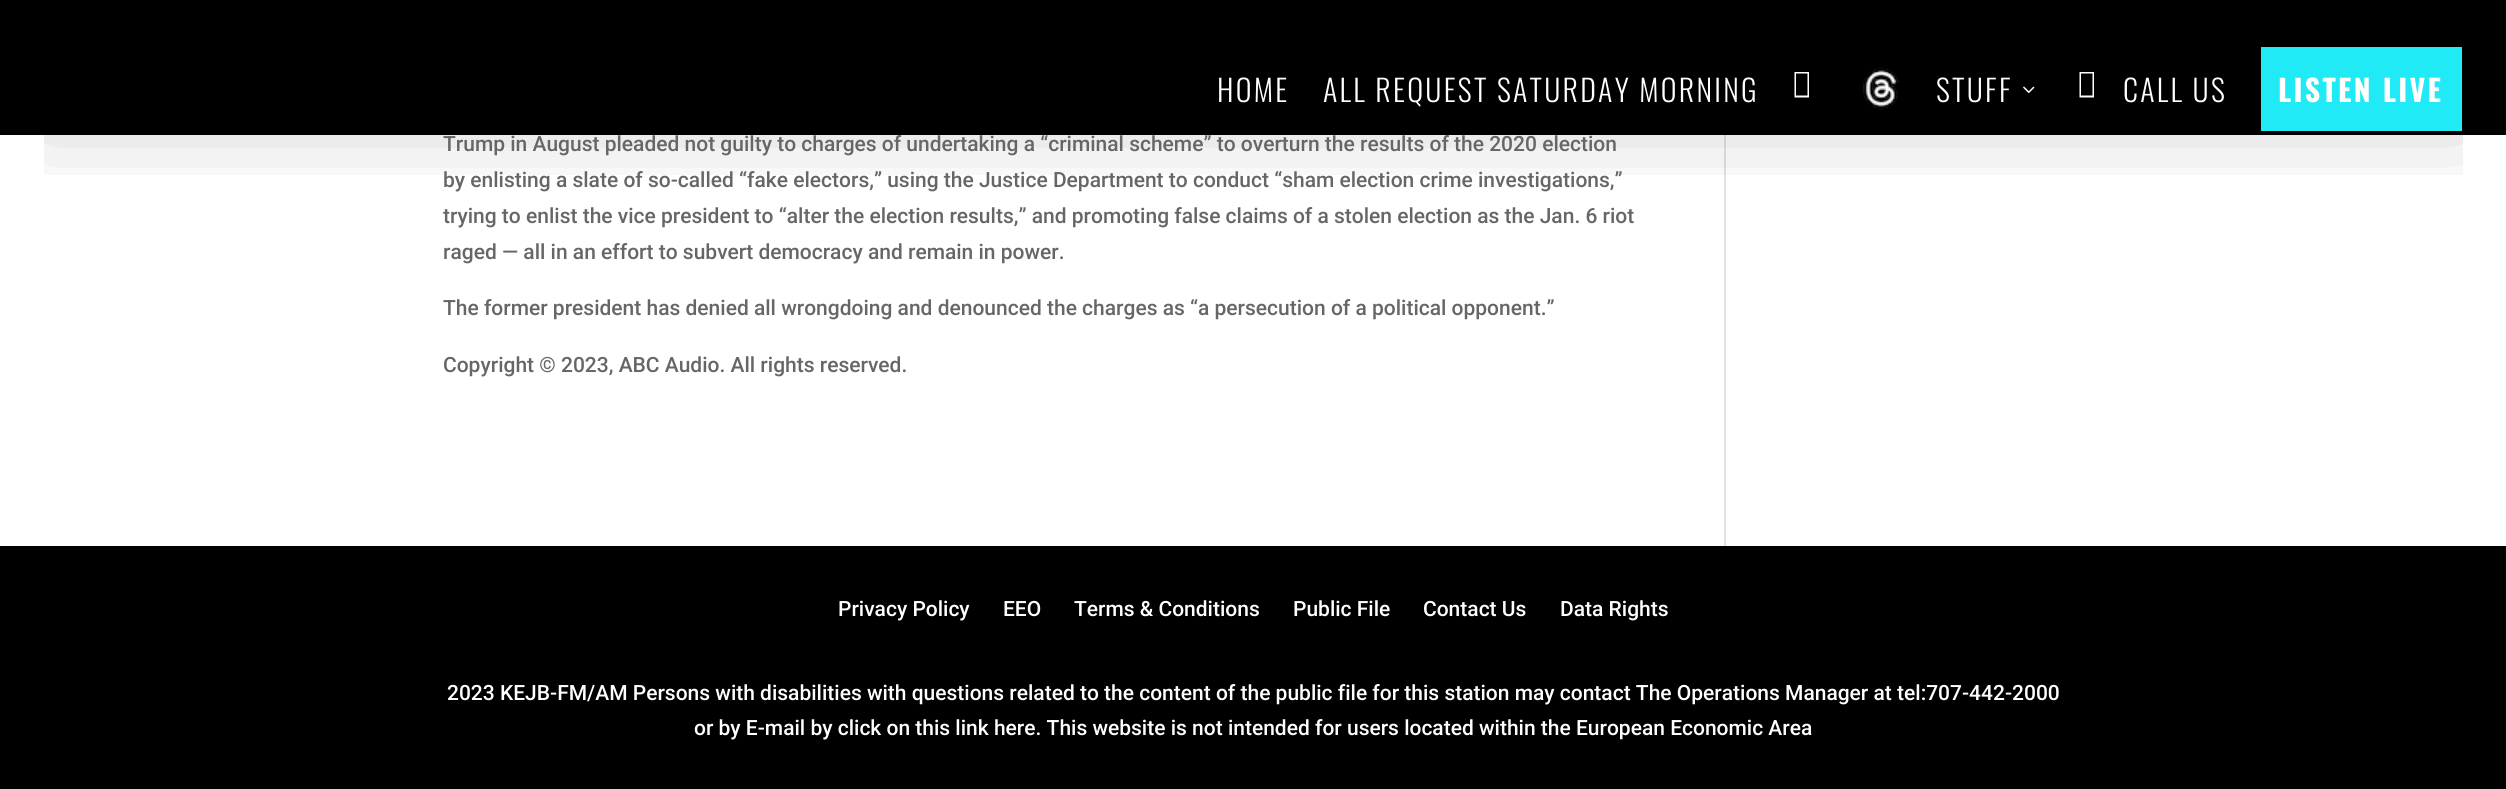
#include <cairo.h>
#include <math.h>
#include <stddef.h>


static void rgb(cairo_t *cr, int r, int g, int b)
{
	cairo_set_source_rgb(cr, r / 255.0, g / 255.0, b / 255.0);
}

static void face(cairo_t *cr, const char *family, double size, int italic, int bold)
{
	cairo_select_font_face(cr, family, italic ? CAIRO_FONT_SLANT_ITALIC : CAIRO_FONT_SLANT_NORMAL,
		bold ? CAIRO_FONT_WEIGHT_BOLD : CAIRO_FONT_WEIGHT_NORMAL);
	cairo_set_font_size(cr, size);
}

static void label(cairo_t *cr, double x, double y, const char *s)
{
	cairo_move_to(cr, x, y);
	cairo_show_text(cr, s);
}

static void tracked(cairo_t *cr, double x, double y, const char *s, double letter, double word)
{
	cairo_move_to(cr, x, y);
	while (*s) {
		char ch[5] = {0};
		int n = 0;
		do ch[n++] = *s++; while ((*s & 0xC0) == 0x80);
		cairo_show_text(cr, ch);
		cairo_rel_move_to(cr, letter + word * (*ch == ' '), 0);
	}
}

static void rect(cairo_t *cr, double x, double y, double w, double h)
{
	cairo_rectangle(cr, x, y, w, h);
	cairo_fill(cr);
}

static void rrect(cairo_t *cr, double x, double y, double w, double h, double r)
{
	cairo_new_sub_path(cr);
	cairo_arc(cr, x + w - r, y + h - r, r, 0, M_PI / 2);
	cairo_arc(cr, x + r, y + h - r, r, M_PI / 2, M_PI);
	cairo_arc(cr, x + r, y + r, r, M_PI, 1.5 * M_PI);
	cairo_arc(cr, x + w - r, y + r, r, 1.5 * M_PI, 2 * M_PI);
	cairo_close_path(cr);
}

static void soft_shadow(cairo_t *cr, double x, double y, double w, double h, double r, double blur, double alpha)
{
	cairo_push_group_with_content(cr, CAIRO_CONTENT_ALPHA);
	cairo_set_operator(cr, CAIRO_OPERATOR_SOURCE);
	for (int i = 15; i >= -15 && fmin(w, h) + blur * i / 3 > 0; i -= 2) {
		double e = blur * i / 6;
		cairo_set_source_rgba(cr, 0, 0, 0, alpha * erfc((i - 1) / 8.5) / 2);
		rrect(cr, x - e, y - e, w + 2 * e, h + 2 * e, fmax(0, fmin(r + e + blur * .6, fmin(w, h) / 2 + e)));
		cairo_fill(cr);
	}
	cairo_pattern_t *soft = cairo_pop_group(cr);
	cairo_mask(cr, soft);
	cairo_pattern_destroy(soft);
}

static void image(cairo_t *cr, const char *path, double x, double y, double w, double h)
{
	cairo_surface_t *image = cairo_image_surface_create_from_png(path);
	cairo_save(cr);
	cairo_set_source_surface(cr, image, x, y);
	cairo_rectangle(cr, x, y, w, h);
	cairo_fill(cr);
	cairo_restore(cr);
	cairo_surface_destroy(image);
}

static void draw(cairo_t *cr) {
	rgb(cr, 255, 255, 255);
	cairo_paint(cr);
	rgb(cr, 0, 0, 0);
	rect(cr, 0, 0, 2506, 135);
	rgb(cr, 226, 226, 226);
	rect(cr, 1724, 135, 2, 411);
	cairo_save(cr);
	cairo_rectangle(cr, 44, 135, 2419, 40);
	cairo_clip(cr);
	rgb(cr, 0, 0, 0);
	soft_shadow(cr, 51, 65, 2405, 33, 0, 60, 0.3);
	cairo_restore(cr);
	face(cr, "Oswald Light", 30, 0, 0);
	rgb(cr, 255, 255, 255);
	tracked(cr, 1217, 102, "HOME", 2.25, 0);
	tracked(cr, 1323, 102, "ALL REQUEST SATURDAY MORNING", 2.25, 0);
	cairo_new_path(cr);
	cairo_move_to(cr, 1794.5, 97.5);
	cairo_line_to(cr, 1794.5, 72);
	cairo_line_to(cr, 1809, 72);
	cairo_line_to(cr, 1809, 97.5);
	cairo_close_path(cr);
	cairo_move_to(cr, 1796, 95.5);
	cairo_line_to(cr, 1807.5, 95.5);
	cairo_line_to(cr, 1807.5, 73.5);
	cairo_line_to(cr, 1796, 73.5);
	cairo_close_path(cr);
	cairo_fill(cr);
	image(cr, "image0.png", 1863, 67, 36, 43);
	tracked(cr, 1936, 102, "STUFF", 2.25, 0);
	image(cr, "image1.png", 2023, 86, 12, 7);
	cairo_new_path(cr);
	cairo_move_to(cr, 2079.5, 97.5);
	cairo_line_to(cr, 2079.5, 72);
	cairo_line_to(cr, 2094, 72);
	cairo_line_to(cr, 2094, 97.5);
	cairo_close_path(cr);
	cairo_move_to(cr, 2081, 95.5);
	cairo_line_to(cr, 2092.5, 95.5);
	cairo_line_to(cr, 2092.5, 73.5);
	cairo_line_to(cr, 2081, 73.5);
	cairo_close_path(cr);
	cairo_fill(cr);
	tracked(cr, 2123, 102, "CALL US", 2.25, 0);
	rgb(cr, 31, 234, 245);
	rect(cr, 2261, 47, 201, 84);
	face(cr, "Oswald", 30, 0, 1);
	rgb(cr, 255, 255, 255);
	tracked(cr, 2278, 102, "LISTEN LIVE", 2.25, 0);
	face(cr, "Roboto Medium", 21, 0, 0);
	rgb(cr, 102, 102, 102);
	label(cr, 443, 151, "Trump in August pleaded not guilty to charges of undertaking a “criminal scheme” to overturn the results of the 2020 election");
	label(cr, 443, 187, "by enlisting a slate of so-called “fake electors,” using the Justice Department to conduct “sham election crime investigations,”");
	label(cr, 443, 223, "trying to enlist the vice president to “alter the election results,” and promoting false claims of a stolen election as the Jan. 6 riot");
	label(cr, 443, 259, "raged — all in an effort to subvert democracy and remain in power.");
	label(cr, 443, 315, "The former president has denied all wrongdoing and denounced the charges as “a persecution of a political opponent.”");
	label(cr, 443, 372, "Copyright © 2023, ABC Audio. All rights reserved.");
	rgb(cr, 0, 0, 0);
	rect(cr, 0, 546, 2506, 243);
	rgb(cr, 255, 255, 255);
	label(cr, 838, 616, "Privacy Policy");
	label(cr, 1003, 616, "EEO");
	label(cr, 1074, 616, "Terms & Conditions");
	label(cr, 1293, 616, "Public File");
	label(cr, 1423, 616, "Contact Us");
	label(cr, 1560, 616, "Data Rights");
	label(cr, 447, 700, "2023 KEJB-FM/AM Persons with disabilities with questions related to the content of the public file for this station may contact The Operations Manager at tel:707-442-2000");
	label(cr, 694, 735, "or by E-mail by click on this link here. This website is not intended for users located within the European Economic Area");
}

int main(void) {
	cairo_surface_t *surface = cairo_image_surface_create(CAIRO_FORMAT_RGB24, 2506, 789);
	cairo_t *cr = cairo_create(surface);
	cairo_font_options_t *options = cairo_font_options_create();
	cairo_font_options_set_hint_metrics(options, CAIRO_HINT_METRICS_OFF);
	cairo_font_options_set_hint_style(options, CAIRO_HINT_STYLE_NONE);
	cairo_set_font_options(cr, options);
	cairo_set_miter_limit(cr, 4);
	draw(cr);
	cairo_surface_write_to_png(surface, "render.png");
	cairo_font_options_destroy(options);
	cairo_destroy(cr);
	cairo_surface_destroy(surface);
	return 0;
}
